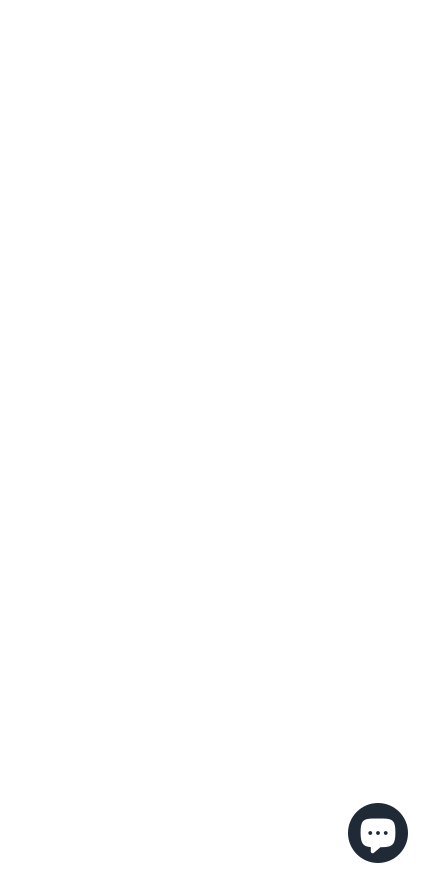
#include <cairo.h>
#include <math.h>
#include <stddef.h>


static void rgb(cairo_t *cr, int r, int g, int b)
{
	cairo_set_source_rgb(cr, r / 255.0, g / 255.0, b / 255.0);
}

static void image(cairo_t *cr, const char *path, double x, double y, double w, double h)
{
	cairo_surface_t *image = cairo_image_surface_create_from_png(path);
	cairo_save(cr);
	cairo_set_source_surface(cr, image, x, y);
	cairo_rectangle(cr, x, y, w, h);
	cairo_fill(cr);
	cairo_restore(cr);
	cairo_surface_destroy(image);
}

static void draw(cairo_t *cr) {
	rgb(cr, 255, 255, 255);
	cairo_paint(cr);
	rgb(cr, 32, 42, 54);
	cairo_arc(cr, 378, 833, 30, 0, 2 * M_PI);
	cairo_fill(cr);
	image(cr, "image0.png", 360, 818, 36, 36);
}

int main(void) {
	cairo_surface_t *surface = cairo_image_surface_create(CAIRO_FORMAT_RGB24, 430, 884);
	cairo_t *cr = cairo_create(surface);
	cairo_font_options_t *options = cairo_font_options_create();
	cairo_font_options_set_hint_metrics(options, CAIRO_HINT_METRICS_OFF);
	cairo_font_options_set_hint_style(options, CAIRO_HINT_STYLE_NONE);
	cairo_set_font_options(cr, options);
	cairo_set_miter_limit(cr, 4);
	draw(cr);
	cairo_surface_write_to_png(surface, "render.png");
	cairo_font_options_destroy(options);
	cairo_destroy(cr);
	cairo_surface_destroy(surface);
	return 0;
}
